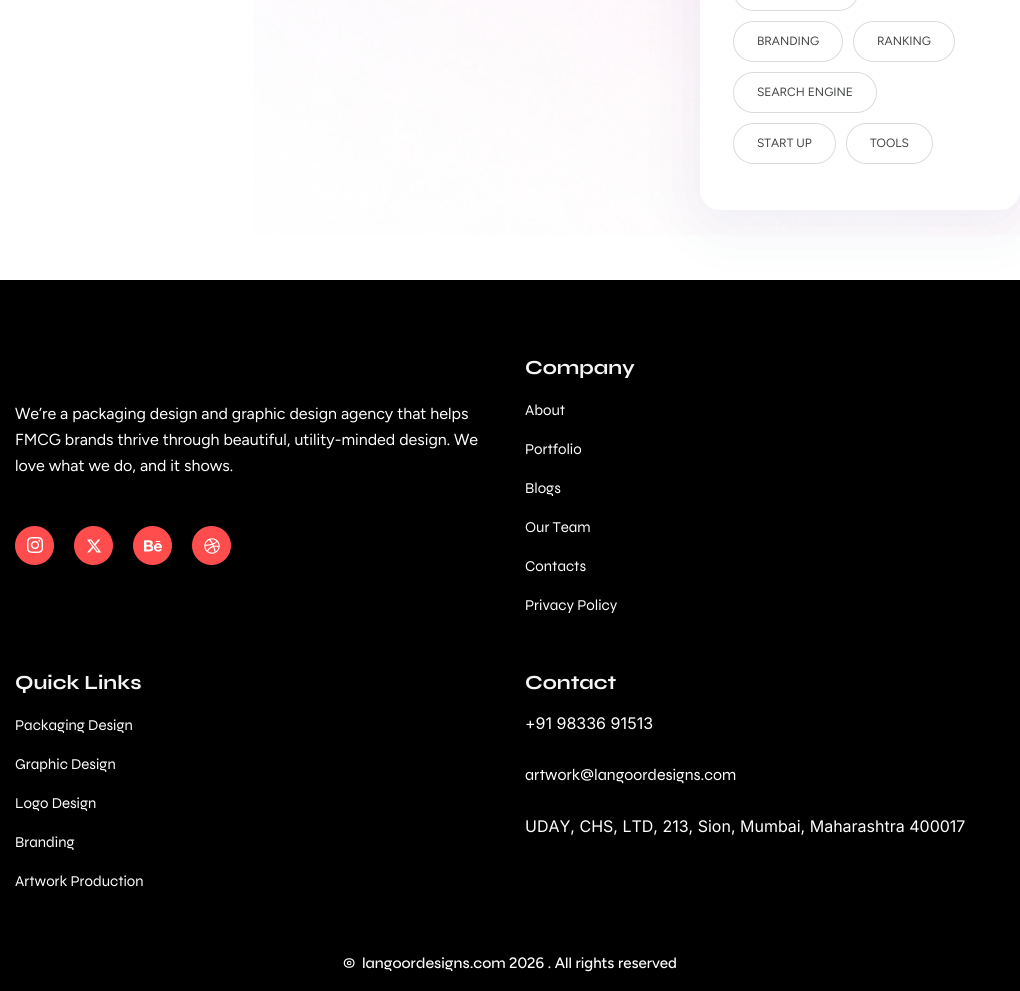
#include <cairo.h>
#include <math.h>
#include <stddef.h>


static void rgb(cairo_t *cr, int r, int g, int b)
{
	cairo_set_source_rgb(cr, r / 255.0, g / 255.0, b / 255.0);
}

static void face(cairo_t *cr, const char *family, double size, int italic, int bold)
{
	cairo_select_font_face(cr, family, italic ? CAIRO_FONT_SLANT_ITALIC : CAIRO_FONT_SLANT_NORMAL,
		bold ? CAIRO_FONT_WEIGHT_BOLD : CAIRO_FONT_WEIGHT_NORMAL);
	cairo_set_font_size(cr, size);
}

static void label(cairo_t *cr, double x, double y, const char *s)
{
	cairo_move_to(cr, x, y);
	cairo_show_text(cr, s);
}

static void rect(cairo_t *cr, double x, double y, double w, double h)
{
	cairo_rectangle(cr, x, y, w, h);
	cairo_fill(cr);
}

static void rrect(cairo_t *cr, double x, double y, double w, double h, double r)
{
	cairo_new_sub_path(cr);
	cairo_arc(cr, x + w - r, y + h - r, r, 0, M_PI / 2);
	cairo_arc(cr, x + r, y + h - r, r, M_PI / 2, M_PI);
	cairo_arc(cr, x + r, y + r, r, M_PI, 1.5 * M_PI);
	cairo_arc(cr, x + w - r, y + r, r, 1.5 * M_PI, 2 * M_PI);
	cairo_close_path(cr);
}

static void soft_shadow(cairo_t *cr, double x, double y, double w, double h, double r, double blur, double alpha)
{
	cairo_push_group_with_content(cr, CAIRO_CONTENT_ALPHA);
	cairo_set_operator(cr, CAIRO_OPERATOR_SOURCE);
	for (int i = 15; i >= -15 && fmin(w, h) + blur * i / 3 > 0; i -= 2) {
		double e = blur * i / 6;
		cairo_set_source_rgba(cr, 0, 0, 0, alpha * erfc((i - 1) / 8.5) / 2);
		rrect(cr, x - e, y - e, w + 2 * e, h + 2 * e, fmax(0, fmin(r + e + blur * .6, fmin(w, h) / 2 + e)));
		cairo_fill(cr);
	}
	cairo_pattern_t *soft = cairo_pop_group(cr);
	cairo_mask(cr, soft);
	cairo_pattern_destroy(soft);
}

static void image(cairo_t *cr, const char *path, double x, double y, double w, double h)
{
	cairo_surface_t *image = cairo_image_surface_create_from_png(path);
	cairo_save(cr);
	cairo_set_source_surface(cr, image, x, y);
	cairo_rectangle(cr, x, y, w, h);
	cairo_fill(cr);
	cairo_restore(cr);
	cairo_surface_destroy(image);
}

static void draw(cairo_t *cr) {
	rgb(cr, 255, 255, 255);
	cairo_paint(cr);
	image(cr, "image0.png", 253, 0, 767, 235);
	rgb(cr, 137, 151, 186);
	soft_shadow(cr, 700, -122, 320, 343, 20, 34, 0.15);
	rgb(cr, 255, 255, 255);
	rrect(cr, 700, -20, 320, 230, 20);
	cairo_fill(cr);
	rrect(cr, 733.5, -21.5, 125, 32, 20);
	rgb(cr, 219, 219, 219);
	cairo_set_line_width(cr, 1);
	cairo_stroke(cr);
	rrect(cr, 733.5, 21.5, 109, 40, 20);
	cairo_stroke(cr);
	face(cr, "Figtree", 12, 0, 0);
	rgb(cr, 67, 68, 68);
	label(cr, 757, 45, "BRANDING");
	rrect(cr, 853.5, 21.5, 101, 40, 20);
	rgb(cr, 219, 219, 219);
	cairo_stroke(cr);
	rgb(cr, 67, 68, 68);
	label(cr, 877, 45, "RANKING");
	rrect(cr, 733.5, 72.5, 143, 40, 20);
	rgb(cr, 219, 219, 219);
	cairo_stroke(cr);
	rgb(cr, 67, 68, 68);
	label(cr, 757, 96, "SEARCH ENGINE");
	rrect(cr, 733.5, 123.5, 102, 40, 20);
	rgb(cr, 219, 219, 219);
	cairo_stroke(cr);
	rgb(cr, 67, 68, 68);
	label(cr, 757, 147, "START UP");
	rrect(cr, 846.5, 123.5, 86, 40, 20);
	rgb(cr, 219, 219, 219);
	cairo_stroke(cr);
	rgb(cr, 67, 68, 68);
	label(cr, 870, 147, "TOOLS");
	rgb(cr, 0, 0, 0);
	rect(cr, 0, 280, 1020, 711);
	face(cr, "Figtree", 16, 0, 0);
	rgb(cr, 255, 255, 255);
	label(cr, 15, 419, "We’re a packaging design and graphic design agency that helps");
	label(cr, 15, 445, "FMCG brands thrive through beautiful, utility-minded design. We");
	label(cr, 15, 471, "love what we do, and it shows.");
	rgb(cr, 255, 77, 77);
	cairo_new_path(cr);
	cairo_arc(cr, 34.5, 545.5, 19.5, 0, 2 * M_PI);
	cairo_fill(cr);
	image(cr, "image1.png", 27, 537, 16, 16);
	cairo_arc(cr, 93.5, 545.5, 19.5, 0, 2 * M_PI);
	cairo_fill(cr);
	image(cr, "image2.png", 87, 539, 15, 14);
	cairo_arc(cr, 152.5, 545.5, 19.5, 0, 2 * M_PI);
	cairo_fill(cr);
	image(cr, "image3.png", 144, 540, 18, 12);
	cairo_arc(cr, 211.5, 545.5, 19.5, 0, 2 * M_PI);
	cairo_fill(cr);
	image(cr, "image4.png", 204, 538, 16, 16);
	face(cr, "Syne", 20, 0, 1);
	rgb(cr, 245, 245, 245);
	label(cr, 525, 374, "Company");
	face(cr, "Syne", 15, 0, 0);
	rgb(cr, 255, 255, 255);
	label(cr, 525, 415, "About");
	label(cr, 525, 454, "Portfolio");
	label(cr, 525, 493, "Blogs");
	label(cr, 525, 532, "Our Team");
	label(cr, 525, 571, "Contacts");
	label(cr, 525, 610, "Privacy Policy");
	face(cr, "Syne", 20, 0, 1);
	rgb(cr, 245, 245, 245);
	label(cr, 15, 689, "Quick Links");
	face(cr, "Syne", 15, 0, 0);
	rgb(cr, 255, 255, 255);
	label(cr, 15, 730, "Packaging Design");
	label(cr, 15, 769, "Graphic Design");
	label(cr, 15, 808, "Logo Design");
	label(cr, 15, 847, "Branding");
	label(cr, 15, 886, "Artwork Production");
	face(cr, "Syne", 20, 0, 1);
	rgb(cr, 245, 245, 245);
	label(cr, 525, 689, "Contact");
	face(cr, "Inter", 16, 0, 0);
	rgb(cr, 255, 255, 255);
	label(cr, 525, 729, "+91 98336 91513");
	face(cr, "Syne", 16, 0, 0);
	label(cr, 525, 780, "artwork@langoordesigns.com");
	face(cr, "Inter", 16, 0, 0);
	label(cr, 525, 832, "UDAY, CHS, LTD, 213, Sion, Mumbai, Maharashtra 400017");
	face(cr, "Syne Medium", 15, 0, 0);
	label(cr, 343, 968, "©  langoordesigns.com");
	face(cr, "Figtree Medium", 15, 0, 0);
	label(cr, 509, 968, "2026 . All rights reserved");
}

int main(void) {
	cairo_surface_t *surface = cairo_image_surface_create(CAIRO_FORMAT_RGB24, 1020, 991);
	cairo_t *cr = cairo_create(surface);
	cairo_font_options_t *options = cairo_font_options_create();
	cairo_font_options_set_hint_metrics(options, CAIRO_HINT_METRICS_OFF);
	cairo_font_options_set_hint_style(options, CAIRO_HINT_STYLE_NONE);
	cairo_set_font_options(cr, options);
	cairo_set_miter_limit(cr, 4);
	draw(cr);
	cairo_surface_write_to_png(surface, "render.png");
	cairo_font_options_destroy(options);
	cairo_destroy(cr);
	cairo_surface_destroy(surface);
	return 0;
}
